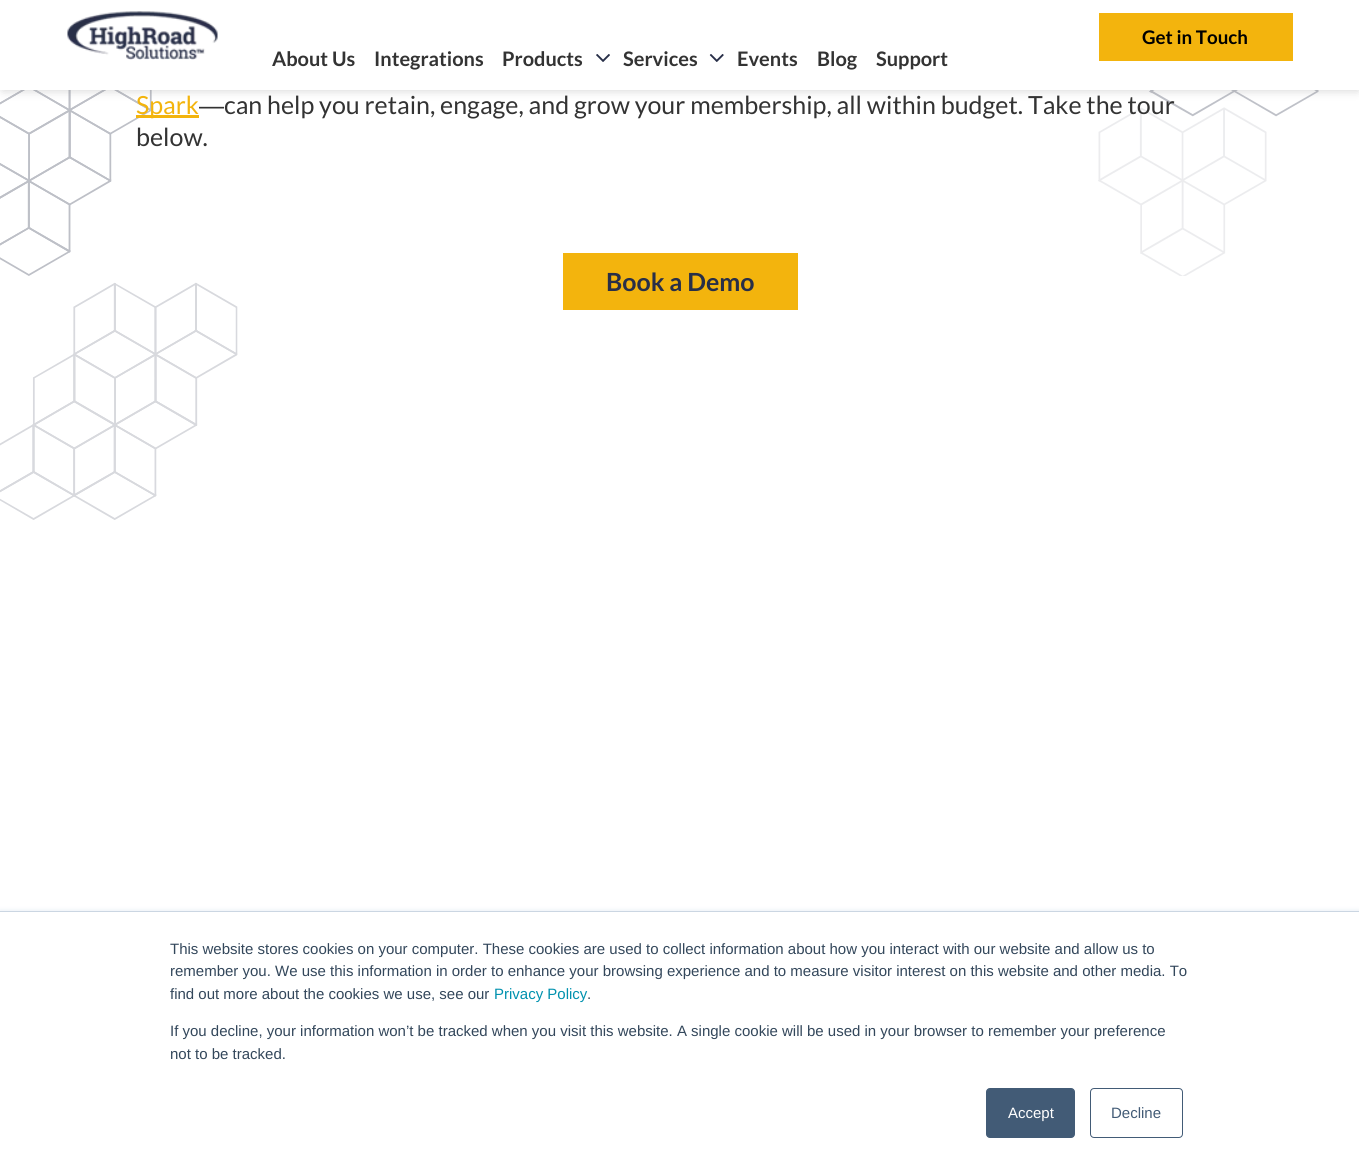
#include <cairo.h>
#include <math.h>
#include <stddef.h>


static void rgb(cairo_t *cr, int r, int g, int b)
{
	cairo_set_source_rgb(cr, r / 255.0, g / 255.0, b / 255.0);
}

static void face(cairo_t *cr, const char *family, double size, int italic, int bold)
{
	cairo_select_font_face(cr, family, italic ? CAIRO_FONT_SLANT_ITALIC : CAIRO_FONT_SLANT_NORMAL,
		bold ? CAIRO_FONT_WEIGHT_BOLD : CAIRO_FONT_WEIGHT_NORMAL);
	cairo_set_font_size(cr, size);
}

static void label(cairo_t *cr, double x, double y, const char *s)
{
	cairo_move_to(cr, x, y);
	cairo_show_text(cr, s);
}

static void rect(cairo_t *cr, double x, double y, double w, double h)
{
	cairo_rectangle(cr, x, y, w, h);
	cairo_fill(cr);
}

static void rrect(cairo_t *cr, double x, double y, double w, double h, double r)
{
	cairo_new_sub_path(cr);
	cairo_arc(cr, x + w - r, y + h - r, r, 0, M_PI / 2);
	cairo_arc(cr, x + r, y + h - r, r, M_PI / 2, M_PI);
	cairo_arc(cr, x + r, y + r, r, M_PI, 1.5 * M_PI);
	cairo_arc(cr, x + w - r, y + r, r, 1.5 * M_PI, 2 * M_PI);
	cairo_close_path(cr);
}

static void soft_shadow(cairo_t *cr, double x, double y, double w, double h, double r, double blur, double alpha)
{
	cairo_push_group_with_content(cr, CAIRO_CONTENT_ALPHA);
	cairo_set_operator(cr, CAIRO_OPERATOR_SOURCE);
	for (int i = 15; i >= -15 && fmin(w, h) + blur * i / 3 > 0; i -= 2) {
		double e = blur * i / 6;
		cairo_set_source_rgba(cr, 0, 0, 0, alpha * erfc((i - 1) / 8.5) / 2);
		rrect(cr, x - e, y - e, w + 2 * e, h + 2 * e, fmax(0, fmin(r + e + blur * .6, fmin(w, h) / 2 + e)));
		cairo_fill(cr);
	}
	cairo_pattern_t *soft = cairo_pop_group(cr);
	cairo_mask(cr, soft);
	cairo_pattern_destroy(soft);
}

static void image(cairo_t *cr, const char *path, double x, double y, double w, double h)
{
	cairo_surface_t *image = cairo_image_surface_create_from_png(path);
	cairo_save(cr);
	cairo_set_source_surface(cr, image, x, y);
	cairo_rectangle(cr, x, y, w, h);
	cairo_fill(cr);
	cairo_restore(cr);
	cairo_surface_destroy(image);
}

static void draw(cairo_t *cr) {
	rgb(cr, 255, 255, 255);
	cairo_paint(cr);
	image(cr, "image3.png", 0, 90, 238, 430);
	image(cr, "image4.png", 1098, 90, 221, 186);
	rgb(cr, 130, 130, 130);
	soft_shadow(cr, 3, 5, 1355, 85, 0, 5, 0.38);
	rgb(cr, 255, 255, 255);
	rect(cr, 0, 0, 1359, 90);
	image(cr, "image0.png", 67, 11, 151, 49);
	rgb(cr, 243, 180, 13);
	rect(cr, 1099, 13, 194, 48);
	face(cr, "Lato", 18.75, 0, 1);
	rgb(cr, 0, 0, 0);
	label(cr, 1142, 44, "Get in Touch");
	face(cr, "Lato", 20, 0, 1);
	rgb(cr, 51, 51, 51);
	label(cr, 272, 66, "About Us");
	label(cr, 374, 66, "Integrations");
	label(cr, 502, 66, "Products");
	image(cr, "image1.png", 596, 54, 14, 8);
	label(cr, 623, 66, "Services");
	image(cr, "image2.png", 709, 54, 15, 8);
	label(cr, 737, 66, "Events");
	label(cr, 817, 66, "Blog");
	label(cr, 876, 66, "Support");
	rgb(cr, 243, 180, 13);
	rect(cr, 136, 115, 63, 3);
	face(cr, "Lato", 25, 0, 0);
	label(cr, 136, 114, "Spark");
	face(cr, "Liberation Sans", 25, 0, 0);
	rgb(cr, 51, 51, 51);
	label(cr, 199, 114, "―");
	face(cr, "Lato", 25, 0, 0);
	label(cr, 224, 114, "can help you retain, engage, and grow your membership, all within budget. Take the tour");
	label(cr, 136, 146, "below.");
	rgb(cr, 243, 180, 13);
	rect(cr, 563, 253, 235, 57);
	face(cr, "Lato", 25, 0, 1);
	rgb(cr, 40, 47, 72);
	label(cr, 606, 291, "Book a Demo");
	rgb(cr, 234, 240, 246);
	soft_shadow(cr, 0, 910, 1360, 259, 0, 2, 1);
	rgb(cr, 255, 255, 255);
	rect(cr, 0, 912, 1359, 258);
	rgb(cr, 203, 214, 226);
	rect(cr, 0, 911, 1359, 1);
	face(cr, "Liberation Sans", 15, 0, 0);
	rgb(cr, 51, 71, 91);
	label(cr, 170, 954, "This website stores cookies on your computer. These cookies are used to collect information about how you interact with our website and allow us to");
	label(cr, 170, 976, "remember you. We use this information in order to enhance your browsing experience and to measure visitor interest on this website and other media. To");
	label(cr, 170, 999, "find out more about the cookies we use, see our");
	rgb(cr, 0, 145, 174);
	label(cr, 494, 999, "Privacy Policy");
	rgb(cr, 51, 71, 91);
	label(cr, 587, 999, ".");
	label(cr, 170, 1036, "If you decline, your information won’t be tracked when you visit this website. A single cookie will be used in your browser to remember your preference");
	label(cr, 170, 1059, "not to be tracked.");
	rgb(cr, 66, 91, 118);
	rrect(cr, 986.5, 1088.5, 88, 49, 3.5);
	cairo_fill_preserve(cr);
	cairo_set_line_width(cr, 1);
	cairo_stroke(cr);
	rgb(cr, 255, 255, 255);
	label(cr, 1008, 1118, "Accept");
	rrect(cr, 1090.5, 1088.5, 92, 49, 3.5);
	rgb(cr, 66, 91, 118);
	cairo_stroke(cr);
	label(cr, 1111, 1118, "Decline");
}

int main(void) {
	cairo_surface_t *surface = cairo_image_surface_create(CAIRO_FORMAT_RGB24, 1359, 1170);
	cairo_t *cr = cairo_create(surface);
	cairo_font_options_t *options = cairo_font_options_create();
	cairo_font_options_set_hint_metrics(options, CAIRO_HINT_METRICS_OFF);
	cairo_font_options_set_hint_style(options, CAIRO_HINT_STYLE_NONE);
	cairo_set_font_options(cr, options);
	cairo_set_miter_limit(cr, 4);
	draw(cr);
	cairo_surface_write_to_png(surface, "render.png");
	cairo_font_options_destroy(options);
	cairo_destroy(cr);
	cairo_surface_destroy(surface);
	return 0;
}
